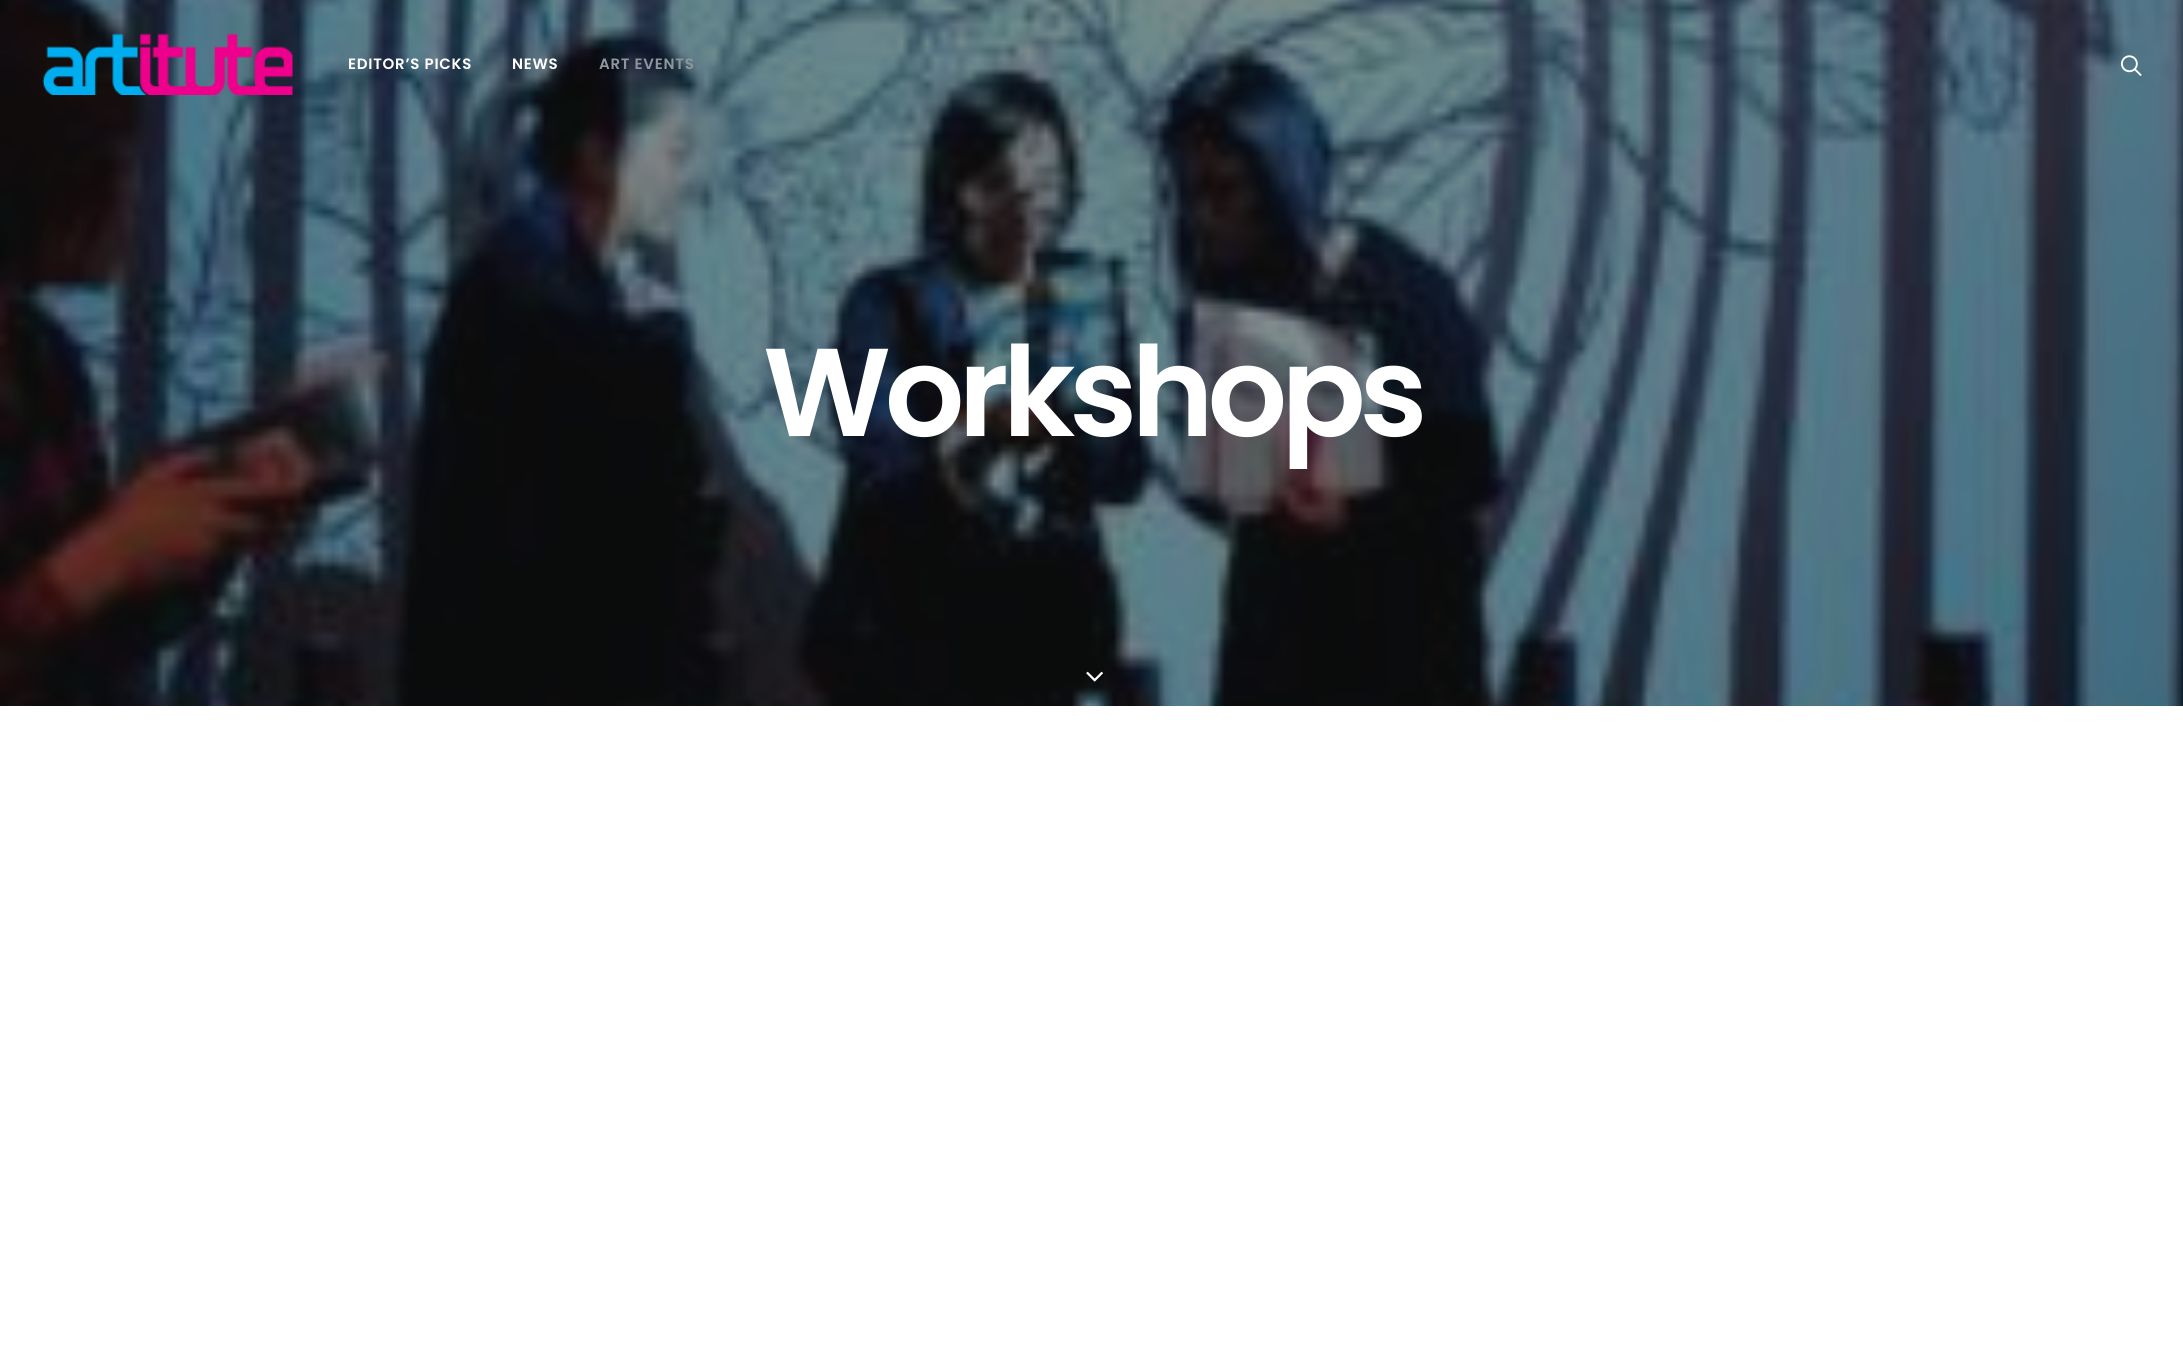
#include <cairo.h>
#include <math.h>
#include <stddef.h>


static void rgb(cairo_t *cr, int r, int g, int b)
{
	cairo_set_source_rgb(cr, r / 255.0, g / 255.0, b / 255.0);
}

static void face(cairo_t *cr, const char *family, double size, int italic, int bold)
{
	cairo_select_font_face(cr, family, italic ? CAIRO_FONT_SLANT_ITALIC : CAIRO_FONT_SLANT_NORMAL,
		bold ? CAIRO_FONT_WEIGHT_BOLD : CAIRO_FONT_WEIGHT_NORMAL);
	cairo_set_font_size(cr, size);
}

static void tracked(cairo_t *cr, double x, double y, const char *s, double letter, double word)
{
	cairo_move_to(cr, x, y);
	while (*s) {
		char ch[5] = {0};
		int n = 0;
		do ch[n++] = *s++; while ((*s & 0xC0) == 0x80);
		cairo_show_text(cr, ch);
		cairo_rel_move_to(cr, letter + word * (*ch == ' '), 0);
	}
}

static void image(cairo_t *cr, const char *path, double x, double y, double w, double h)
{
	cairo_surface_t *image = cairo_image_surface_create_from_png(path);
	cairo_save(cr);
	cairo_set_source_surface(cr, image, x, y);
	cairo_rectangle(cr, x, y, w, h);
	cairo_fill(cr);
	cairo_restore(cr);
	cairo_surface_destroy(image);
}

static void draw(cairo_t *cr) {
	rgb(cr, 255, 255, 255);
	cairo_paint(cr);
	image(cr, "image2.png", 0, 0, 2183, 706);
	image(cr, "image0.png", 42, 33, 251, 62);
	face(cr, "Poppins SemiBold", 15, 0, 0);
	rgb(cr, 255, 255, 255);
	tracked(cr, 348, 69, "EDITOR’S PICKS", 0.75, 0);
	tracked(cr, 512, 69, "NEWS", 0.75, 0);
	rgb(cr, 143, 150, 156);
	tracked(cr, 599, 69, "ART EVENTS", 0.75, 0);
	image(cr, "image1.png", 2120, 55, 22, 21);
	face(cr, "Poppins SemiBold", 125, 0, 0);
	rgb(cr, 255, 255, 255);
	tracked(cr, 763, 436, "Workshops", -6.25, 0);
	image(cr, "image3.png", 1086, 671, 17, 11);
}

int main(void) {
	cairo_surface_t *surface = cairo_image_surface_create(CAIRO_FORMAT_RGB24, 2183, 1364);
	cairo_t *cr = cairo_create(surface);
	cairo_font_options_t *options = cairo_font_options_create();
	cairo_font_options_set_hint_metrics(options, CAIRO_HINT_METRICS_OFF);
	cairo_font_options_set_hint_style(options, CAIRO_HINT_STYLE_NONE);
	cairo_set_font_options(cr, options);
	cairo_set_miter_limit(cr, 4);
	draw(cr);
	cairo_surface_write_to_png(surface, "render.png");
	cairo_font_options_destroy(options);
	cairo_destroy(cr);
	cairo_surface_destroy(surface);
	return 0;
}
